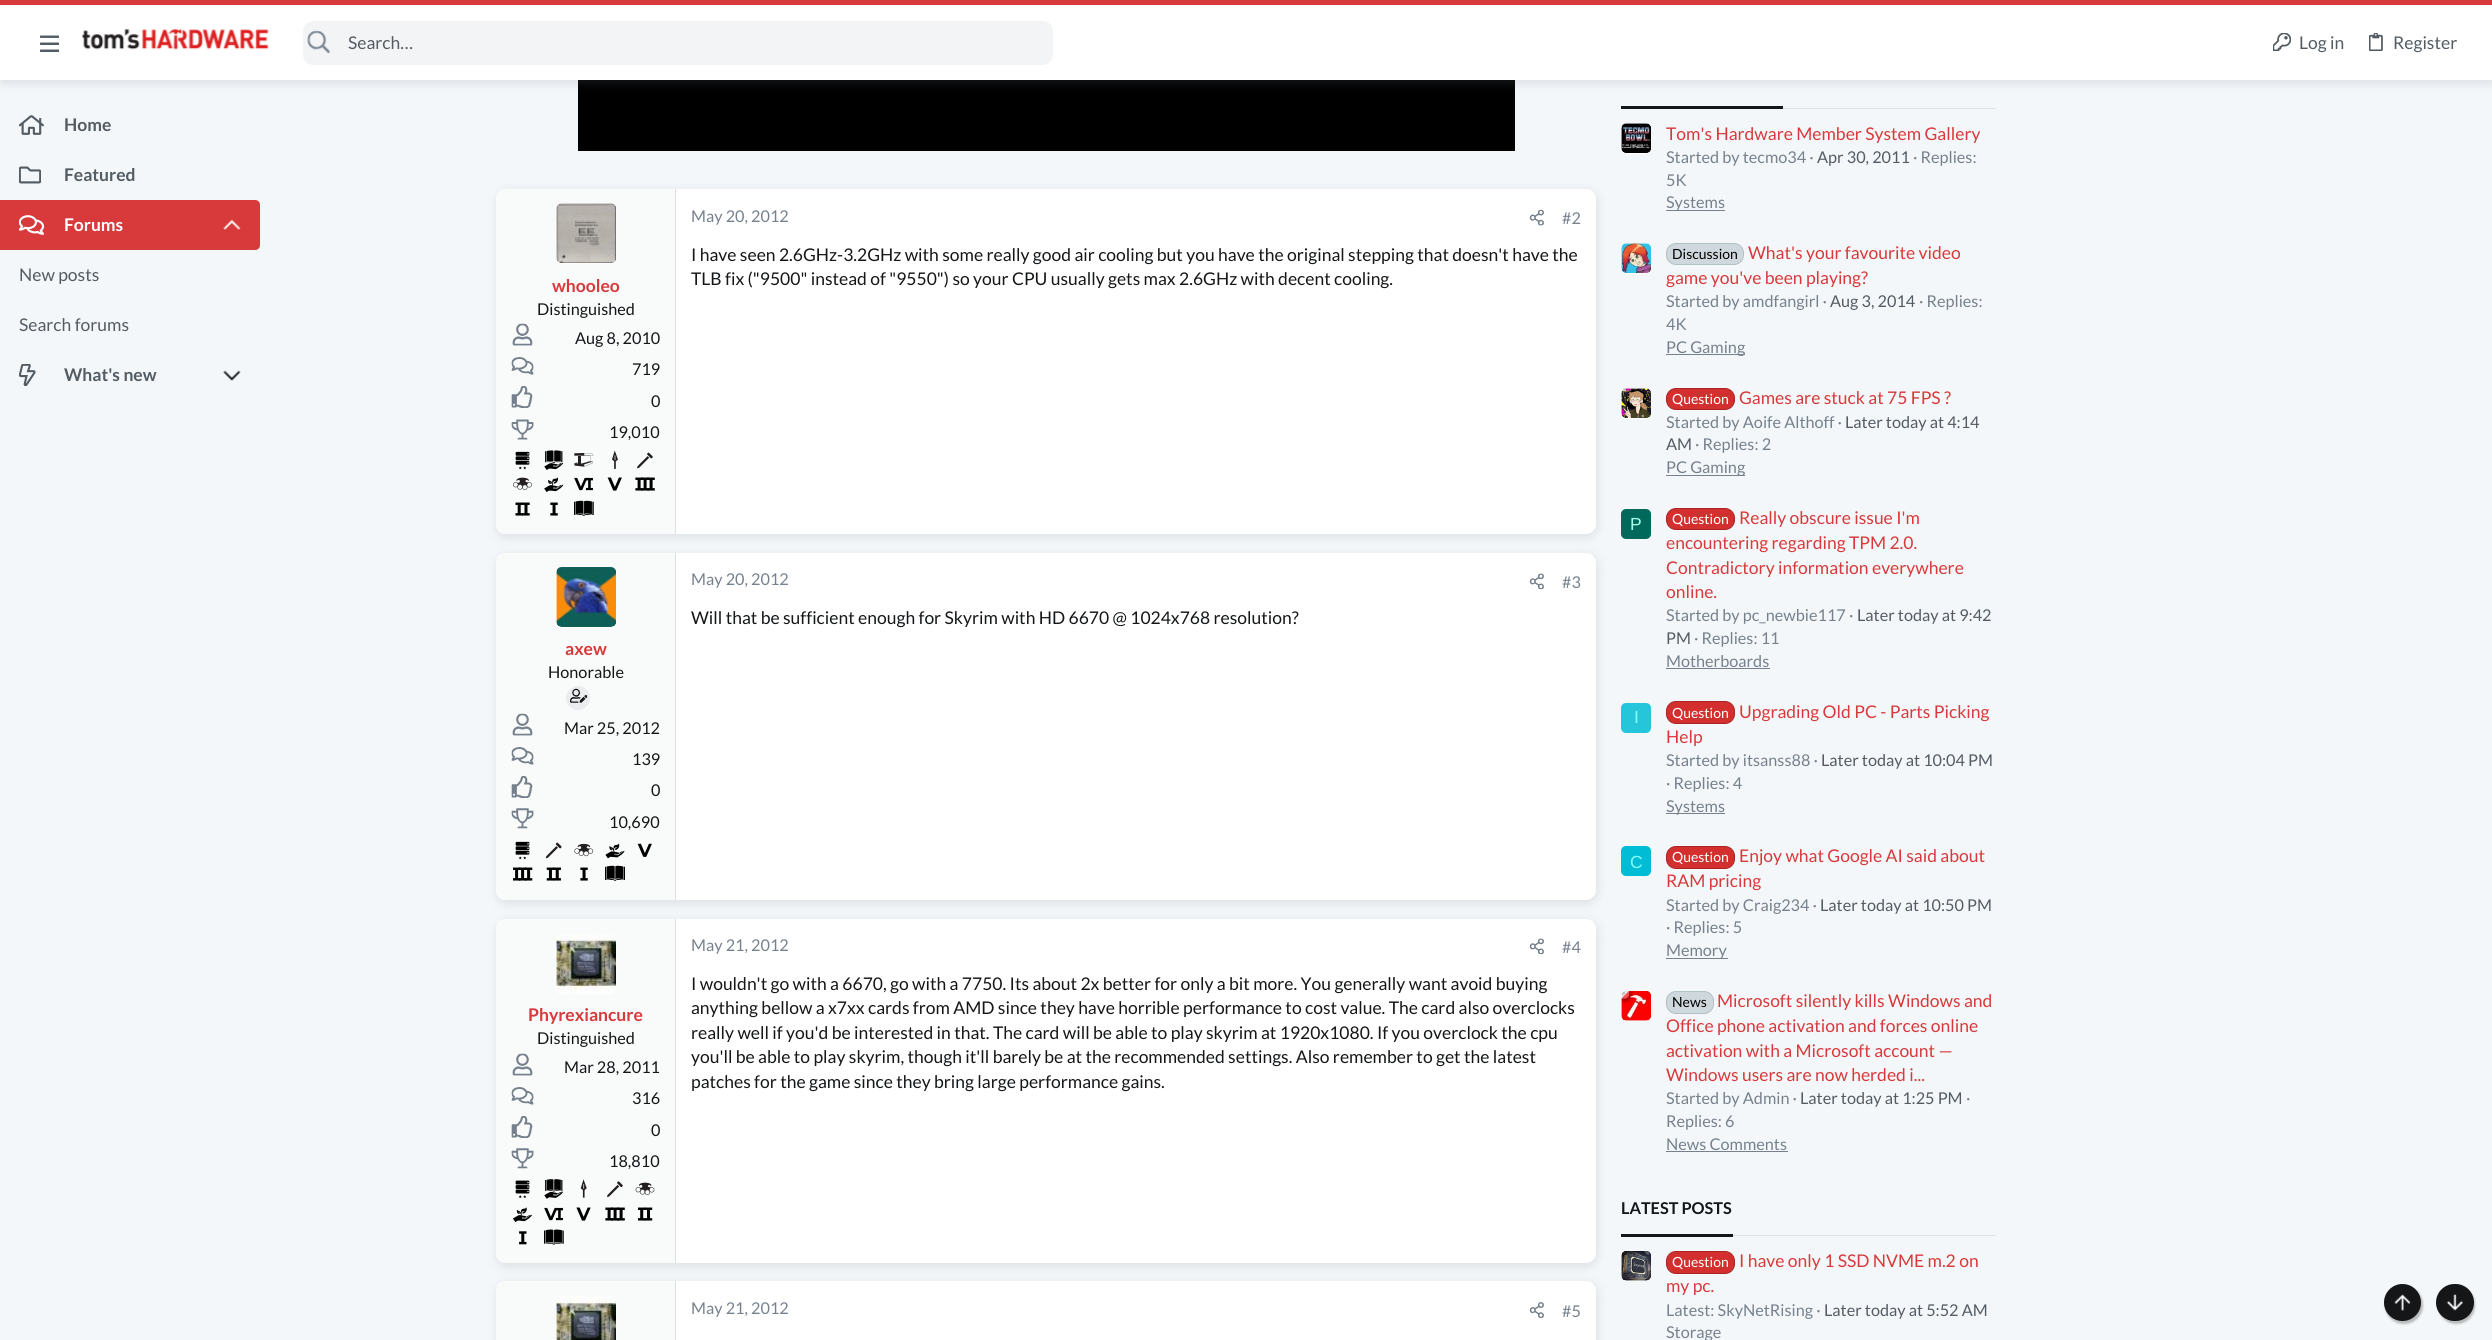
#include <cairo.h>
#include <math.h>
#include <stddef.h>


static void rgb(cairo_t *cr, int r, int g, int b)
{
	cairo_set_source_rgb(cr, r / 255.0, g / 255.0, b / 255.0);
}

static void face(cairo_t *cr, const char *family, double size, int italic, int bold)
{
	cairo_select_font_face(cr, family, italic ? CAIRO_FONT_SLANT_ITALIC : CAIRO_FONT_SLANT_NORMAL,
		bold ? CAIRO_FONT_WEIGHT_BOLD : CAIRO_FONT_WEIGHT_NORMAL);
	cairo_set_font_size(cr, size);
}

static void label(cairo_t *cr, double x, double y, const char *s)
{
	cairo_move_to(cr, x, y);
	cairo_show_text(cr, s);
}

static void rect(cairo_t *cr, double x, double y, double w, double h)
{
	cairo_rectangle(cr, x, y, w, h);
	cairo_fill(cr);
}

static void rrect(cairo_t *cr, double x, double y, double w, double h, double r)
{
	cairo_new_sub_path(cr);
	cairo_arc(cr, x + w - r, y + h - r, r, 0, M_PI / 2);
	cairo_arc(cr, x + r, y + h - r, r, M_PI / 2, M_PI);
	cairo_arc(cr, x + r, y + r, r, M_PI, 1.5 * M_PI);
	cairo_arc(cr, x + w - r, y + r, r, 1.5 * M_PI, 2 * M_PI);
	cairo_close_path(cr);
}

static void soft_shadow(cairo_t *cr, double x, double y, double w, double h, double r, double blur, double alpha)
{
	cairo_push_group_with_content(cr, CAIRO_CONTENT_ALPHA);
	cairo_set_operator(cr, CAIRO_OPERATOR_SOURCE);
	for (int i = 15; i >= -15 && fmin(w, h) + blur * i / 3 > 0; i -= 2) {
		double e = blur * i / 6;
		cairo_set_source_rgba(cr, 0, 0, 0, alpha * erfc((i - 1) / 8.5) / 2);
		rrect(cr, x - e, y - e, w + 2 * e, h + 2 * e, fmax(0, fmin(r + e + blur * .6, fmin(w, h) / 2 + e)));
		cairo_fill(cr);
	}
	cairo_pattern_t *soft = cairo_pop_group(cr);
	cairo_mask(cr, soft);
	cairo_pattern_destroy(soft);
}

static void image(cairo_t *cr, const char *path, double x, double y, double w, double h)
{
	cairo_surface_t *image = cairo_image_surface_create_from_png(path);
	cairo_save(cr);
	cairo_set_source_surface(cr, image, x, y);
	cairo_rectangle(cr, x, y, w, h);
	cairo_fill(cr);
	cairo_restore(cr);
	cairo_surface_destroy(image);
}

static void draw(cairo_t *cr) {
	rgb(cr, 244, 247, 249);
	cairo_paint(cr);
	rgb(cr, 0, 0, 0);
	rect(cr, 578, 80, 937, 71);
	rgb(cr, 107, 119, 128);
	soft_shadow(cr, 3, 0, 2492, 80, 0, 5, 0.08);
	soft_shadow(cr, 0, 5, 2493, 80, 0, 5, 0.12);
	rgb(cr, 255, 255, 255);
	rect(cr, 0, 5, 2492, 75);
	rgb(cr, 216, 57, 59);
	rect(cr, 0, 0, 2492, 5);
	image(cr, "image0.png", 40, 35, 19, 17);
	image(cr, "image1.png", 82, 29, 187, 21);
	rgb(cr, 243, 244, 245);
	rrect(cr, 303, 21, 750, 44, 10);
	cairo_fill(cr);
	image(cr, "image2.png", 307, 30, 24, 24);
	face(cr, "Lato", 17.5, 0, 0);
	rgb(cr, 83, 91, 99);
	label(cr, 348, 49, "Search…");
	image(cr, "image3.png", 2273, 33, 18, 18);
	label(cr, 2299, 49, "Log in");
	image(cr, "image4.png", 2369, 33, 14, 18);
	label(cr, 2393, 49, "Register");
	image(cr, "image5.png", 19, 115, 25, 20);
	face(cr, "Lato", 17.5, 0, 1);
	label(cr, 64, 131, "Home");
	image(cr, "image6.png", 19, 166, 22, 18);
	label(cr, 64, 181, "Featured");
	rgb(cr, 216, 57, 59);
	cairo_new_path(cr);
	cairo_move_to(cr, 0, 200);
	cairo_line_to(cr, 255, 200);
	cairo_curve_to(cr, 258, 200, 260, 202, 260, 205);
	cairo_line_to(cr, 260, 245);
	cairo_curve_to(cr, 260, 248, 258, 250, 255, 250);
	cairo_line_to(cr, 0, 250);
	cairo_close_path(cr);
	cairo_fill(cr);
	image(cr, "image7.png", 19, 215, 25, 20);
	rgb(cr, 255, 255, 255);
	label(cr, 64, 231, "Forums");
	image(cr, "image8.png", 223, 219, 18, 11);
	face(cr, "Lato", 17.5, 0, 0);
	rgb(cr, 83, 91, 99);
	label(cr, 19, 281, "New posts");
	label(cr, 19, 331, "Search forums");
	image(cr, "image9.png", 19, 364, 17, 22);
	face(cr, "Lato", 17.5, 0, 1);
	label(cr, 64, 381, "What's new");
	image(cr, "image10.png", 223, 370, 18, 11);
	rgb(cr, 107, 119, 128);
	soft_shadow(cr, 499, 189, 1100, 345, 10, 5, 0.08);
	soft_shadow(cr, 496, 194, 1100, 345, 10, 5, 0.12);
	rgb(cr, 255, 255, 255);
	rrect(cr, 496, 189, 1100, 345, 10);
	cairo_fill(cr);
	face(cr, "Lato", 16.25, 0, 0);
	rgb(cr, 118, 129, 141);
	label(cr, 691, 222, "May 20, 2012");
	image(cr, "image11.png", 1529, 209, 15, 17);
	label(cr, 1562, 224, "#2");
	face(cr, "Lato", 17.5, 0, 0);
	rgb(cr, 20, 22, 24);
	label(cr, 691, 261, "I have seen 2.6GHz-3.2GHz with some really good air cooling but you have the original stepping that doesn't have the");
	label(cr, 691, 285, "TLB fix (\"9500\" instead of \"9550\") so your CPU usually gets max 2.6GHz with decent cooling.");
	rgb(cr, 249, 250, 250);
	cairo_new_path(cr);
	cairo_move_to(cr, 505, 189);
	cairo_line_to(cr, 676, 189);
	cairo_line_to(cr, 676, 534);
	cairo_line_to(cr, 505, 534);
	cairo_curve_to(cr, 500, 534, 496, 530, 496, 525);
	cairo_line_to(cr, 496, 198);
	cairo_curve_to(cr, 496, 193, 500, 189, 505, 189);
	cairo_close_path(cr);
	cairo_fill(cr);
	rgb(cr, 224, 224, 224);
	rect(cr, 675, 189, 1, 345);
	rgb(cr, 255, 255, 255);
	rrect(cr, 556, 204, 60, 60, 5);
	cairo_fill(cr);
	image(cr, "image12.png", 556, 203, 60, 60);
	face(cr, "Lato", 17.5, 0, 1);
	rgb(cr, 216, 57, 59);
	label(cr, 552, 292, "whooleo");
	face(cr, "Lato", 16.25, 0, 0);
	rgb(cr, 20, 22, 24);
	label(cr, 537, 315, "Distinguished");
	image(cr, "image13.png", 512, 323, 21, 23);
	label(cr, 575, 344, "Aug 8, 2010");
	image(cr, "image14.png", 511, 357, 23, 18);
	label(cr, 632, 375, "719");
	image(cr, "image15.png", 511, 386, 22, 22);
	label(cr, 651, 407, "0");
	image(cr, "image16.png", 511, 419, 23, 21);
	label(cr, 609, 438, "19,010");
	image(cr, "image17.png", 515, 451, 15, 19);
	image(cr, "image18.png", 544, 450, 20, 20);
	image(cr, "image19.png", 574, 453, 20, 14);
	image(cr, "image20.png", 612, 450, 6, 19);
	image(cr, "image21.png", 637, 452, 16, 17);
	image(cr, "image22.png", 513, 477, 19, 13);
	image(cr, "image23.png", 544, 477, 20, 15);
	image(cr, "image24.png", 574, 477, 19, 14);
	image(cr, "image25.png", 607, 477, 15, 14);
	image(cr, "image26.png", 635, 477, 20, 14);
	image(cr, "image27.png", 515, 502, 15, 14);
	image(cr, "image28.png", 550, 502, 8, 14);
	image(cr, "image29.png", 574, 500, 20, 16);
	rgb(cr, 107, 119, 128);
	soft_shadow(cr, 499, 553, 1100, 347, 10, 5, 0.08);
	soft_shadow(cr, 496, 558, 1100, 347, 10, 5, 0.12);
	rgb(cr, 255, 255, 255);
	rrect(cr, 496, 553, 1100, 347, 10);
	cairo_fill(cr);
	rgb(cr, 118, 129, 141);
	label(cr, 691, 585, "May 20, 2012");
	image(cr, "image30.png", 1529, 573, 15, 17);
	label(cr, 1562, 588, "#3");
	face(cr, "Lato", 17.5, 0, 0);
	rgb(cr, 20, 22, 24);
	label(cr, 691, 624, "Will that be sufficient enough for Skyrim with HD 6670 @ 1024x768 resolution?");
	rgb(cr, 249, 250, 250);
	cairo_new_path(cr);
	cairo_move_to(cr, 505, 553);
	cairo_line_to(cr, 676, 553);
	cairo_line_to(cr, 676, 900);
	cairo_line_to(cr, 505, 900);
	cairo_curve_to(cr, 500, 900, 496, 896, 496, 891);
	cairo_line_to(cr, 496, 562);
	cairo_curve_to(cr, 496, 557, 500, 553, 505, 553);
	cairo_close_path(cr);
	cairo_fill(cr);
	rgb(cr, 224, 224, 224);
	rect(cr, 675, 553, 1, 347);
	rgb(cr, 255, 255, 255);
	rrect(cr, 556, 568, 60, 60, 5);
	cairo_fill(cr);
	image(cr, "image31.png", 556, 567, 60, 60);
	face(cr, "Lato", 17.5, 0, 1);
	rgb(cr, 216, 57, 59);
	label(cr, 565, 655, "axew");
	face(cr, "Lato", 16.25, 0, 0);
	rgb(cr, 20, 22, 24);
	label(cr, 548, 678, "Honorable");
	rgb(cr, 235, 236, 238);
	cairo_new_path(cr);
	cairo_arc(cr, 578, 698, 12, 0, 2 * M_PI);
	cairo_fill(cr);
	image(cr, "image32.png", 570, 688, 18, 15);
	image(cr, "image13.png", 512, 713, 21, 23);
	rgb(cr, 20, 22, 24);
	label(cr, 564, 734, "Mar 25, 2012");
	image(cr, "image14.png", 511, 747, 23, 18);
	label(cr, 632, 765, "139");
	image(cr, "image33.png", 511, 776, 22, 22);
	label(cr, 651, 796, "0");
	image(cr, "image34.png", 511, 808, 23, 21);
	label(cr, 609, 828, "10,690");
	image(cr, "image17.png", 515, 841, 15, 19);
	image(cr, "image35.png", 545, 842, 17, 17);
	image(cr, "image36.png", 574, 843, 20, 14);
	image(cr, "image37.png", 605, 843, 20, 16);
	image(cr, "image38.png", 637, 843, 15, 14);
	image(cr, "image39.png", 513, 867, 20, 14);
	image(cr, "image40.png", 546, 867, 15, 14);
	image(cr, "image28.png", 580, 867, 8, 14);
	image(cr, "image41.png", 605, 865, 20, 16);
	rgb(cr, 107, 119, 128);
	soft_shadow(cr, 499, 919, 1100, 344, 10, 5, 0.08);
	soft_shadow(cr, 496, 924, 1100, 344, 10, 5, 0.12);
	rgb(cr, 255, 255, 255);
	rrect(cr, 496, 919, 1100, 344, 10);
	cairo_fill(cr);
	rgb(cr, 249, 250, 250);
	cairo_new_path(cr);
	cairo_move_to(cr, 505, 919);
	cairo_line_to(cr, 676, 919);
	cairo_line_to(cr, 676, 1263);
	cairo_line_to(cr, 505, 1263);
	cairo_curve_to(cr, 500, 1263, 496, 1259, 496, 1254);
	cairo_line_to(cr, 496, 928);
	cairo_curve_to(cr, 496, 923, 500, 919, 505, 919);
	cairo_close_path(cr);
	cairo_fill(cr);
	rgb(cr, 224, 224, 224);
	rect(cr, 675, 919, 1, 344);
	rgb(cr, 255, 255, 255);
	rrect(cr, 556, 934, 60, 60, 5);
	cairo_fill(cr);
	image(cr, "image42.png", 556, 934, 60, 59);
	face(cr, "Lato", 17.5, 0, 1);
	rgb(cr, 216, 57, 59);
	label(cr, 528, 1021, "Phyrexiancure");
	face(cr, "Lato", 16.25, 0, 0);
	rgb(cr, 20, 22, 24);
	label(cr, 537, 1044, "Distinguished");
	image(cr, "image43.png", 512, 1053, 21, 23);
	label(cr, 564, 1073, "Mar 28, 2011");
	image(cr, "image14.png", 511, 1087, 23, 18);
	label(cr, 632, 1104, "316");
	image(cr, "image33.png", 511, 1116, 22, 22);
	label(cr, 651, 1136, "0");
	image(cr, "image34.png", 511, 1148, 23, 21);
	label(cr, 609, 1167, "18,810");
	image(cr, "image44.png", 515, 1180, 15, 18);
	image(cr, "image45.png", 544, 1179, 20, 20);
	image(cr, "image46.png", 580, 1179, 7, 19);
	image(cr, "image47.png", 607, 1181, 16, 17);
	image(cr, "image48.png", 635, 1182, 20, 13);
	image(cr, "image49.png", 513, 1207, 19, 15);
	image(cr, "image24.png", 544, 1207, 19, 14);
	image(cr, "image50.png", 576, 1207, 15, 14);
	image(cr, "image26.png", 605, 1207, 20, 14);
	image(cr, "image51.png", 638, 1207, 15, 14);
	image(cr, "image52.png", 519, 1231, 8, 14);
	image(cr, "image53.png", 544, 1229, 20, 16);
	rgb(cr, 118, 129, 141);
	label(cr, 691, 951, "May 21, 2012");
	image(cr, "image30.png", 1529, 938, 15, 17);
	label(cr, 1562, 953, "#4");
	face(cr, "Lato", 17.5, 0, 0);
	rgb(cr, 20, 22, 24);
	label(cr, 691, 990, "I wouldn't go with a 6670, go with a 7750. Its about 2x better for only a bit more. You generally want avoid buying");
	label(cr, 691, 1014, "anything bellow a x7xx cards from AMD since they have horrible performance to cost value. The card also overclocks");
	label(cr, 691, 1039, "really well if you'd be interested in that. The card will be able to play skyrim at 1920x1080. If you overclock the cpu");
	label(cr, 691, 1063, "you'll be able to play skyrim, though it'll barely be at the recommended settings. Also remember to get the latest");
	label(cr, 691, 1088, "patches for the game since they bring large performance gains.");
	rgb(cr, 107, 119, 128);
	soft_shadow(cr, 499, 1281, 1100, 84, 10, 5, 0.08);
	soft_shadow(cr, 496, 1286, 1100, 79, 10, 5, 0.12);
	rgb(cr, 255, 255, 255);
	rrect(cr, 496, 1281, 1100, 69, 10);
	cairo_fill(cr);
	rgb(cr, 249, 250, 250);
	cairo_new_path(cr);
	cairo_move_to(cr, 505, 1281);
	cairo_line_to(cr, 676, 1281);
	cairo_line_to(cr, 676, 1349);
	cairo_line_to(cr, 505, 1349);
	cairo_curve_to(cr, 500, 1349, 496, 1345, 496, 1340);
	cairo_line_to(cr, 496, 1290);
	cairo_curve_to(cr, 496, 1285, 500, 1281, 505, 1281);
	cairo_close_path(cr);
	cairo_fill(cr);
	rgb(cr, 224, 224, 224);
	rect(cr, 675, 1281, 1, 59);
	rgb(cr, 255, 255, 255);
	rrect(cr, 556, 1296, 60, 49, 5);
	cairo_fill(cr);
	image(cr, "image54.png", 556, 1296, 60, 44);
	face(cr, "Lato", 16.25, 0, 0);
	rgb(cr, 118, 129, 141);
	label(cr, 691, 1314, "May 21, 2012");
	image(cr, "image55.png", 1529, 1302, 15, 16);
	label(cr, 1562, 1317, "#5");
	rgb(cr, 20, 22, 24);
	rect(cr, 1621, 106, 162, 3);
	rgb(cr, 224, 224, 224);
	rect(cr, 1783, 108, 213, 1);
	rgb(cr, 255, 255, 255);
	rrect(cr, 1621, 124, 30, 30, 5);
	cairo_fill(cr);
	image(cr, "image56.png", 1621, 123, 30, 30);
	face(cr, "Lato", 17.5, 0, 0);
	rgb(cr, 216, 57, 59);
	label(cr, 1666, 140, "Tom's Hardware Member System Gallery");
	face(cr, "Lato", 16.25, 0, 0);
	rgb(cr, 118, 129, 141);
	label(cr, 1666, 163, "Started by tecmo34 ·");
	rgb(cr, 83, 91, 99);
	label(cr, 1817, 163, "Apr 30, 2011");
	rgb(cr, 118, 129, 141);
	label(cr, 1913, 163, "· Replies:");
	label(cr, 1666, 186, "5K");
	rect(cr, 1666, 210, 59, 1);
	label(cr, 1666, 208, "Systems");
	rgb(cr, 255, 255, 255);
	rrect(cr, 1621, 244, 30, 30, 5);
	cairo_fill(cr);
	image(cr, "image57.png", 1621, 243, 30, 30);
	rgb(cr, 207, 216, 220);
	rrect(cr, 1666.5, 243.5, 77, 21, 9.5);
	cairo_fill_preserve(cr);
	rgb(cr, 178, 192, 198);
	cairo_set_line_width(cr, 1);
	cairo_stroke(cr);
	face(cr, "Lato", 14, 0, 0);
	rgb(cr, 0, 0, 0);
	label(cr, 1672, 259, "Discussion");
	face(cr, "Lato", 17.5, 0, 0);
	rgb(cr, 216, 57, 59);
	label(cr, 1748, 259, "What's your favourite video");
	label(cr, 1666, 284, "game you've been playing?");
	face(cr, "Lato", 16.25, 0, 0);
	rgb(cr, 118, 129, 141);
	label(cr, 1666, 307, "Started by amdfangirl ·");
	rgb(cr, 83, 91, 99);
	label(cr, 1830, 307, "Aug 3, 2014");
	rgb(cr, 118, 129, 141);
	label(cr, 1919, 307, "· Replies:");
	label(cr, 1666, 330, "4K");
	rect(cr, 1666, 354, 79, 1);
	label(cr, 1666, 353, "PC Gaming");
	rgb(cr, 255, 255, 255);
	rrect(cr, 1621, 389, 30, 30, 5);
	cairo_fill(cr);
	image(cr, "image58.png", 1621, 388, 30, 30);
	rgb(cr, 211, 47, 47);
	rrect(cr, 1666.5, 388.5, 68, 21, 9.5);
	cairo_fill_preserve(cr);
	rgb(cr, 171, 36, 36);
	cairo_stroke(cr);
	face(cr, "Lato", 14, 0, 0);
	rgb(cr, 255, 255, 255);
	label(cr, 1672, 404, "Question");
	face(cr, "Lato", 17.5, 0, 0);
	rgb(cr, 216, 57, 59);
	label(cr, 1739, 404, "Games are stuck at 75 FPS ?");
	face(cr, "Lato", 16.25, 0, 0);
	rgb(cr, 118, 129, 141);
	label(cr, 1666, 428, "Started by Aoife Althoff ·");
	rgb(cr, 83, 91, 99);
	label(cr, 1845, 428, "Later today at 4:14");
	label(cr, 1666, 450, "AM");
	rgb(cr, 118, 129, 141);
	label(cr, 1695, 450, "· Replies: 2");
	rect(cr, 1666, 475, 79, 1);
	label(cr, 1666, 473, "PC Gaming");
	rgb(cr, 0, 105, 92);
	rrect(cr, 1621, 509, 30, 30, 5);
	cairo_fill(cr);
	face(cr, "Liberation Sans", 17.5, 0, 0);
	rgb(cr, 167, 255, 235);
	label(cr, 1630, 530, "P");
	rgb(cr, 211, 47, 47);
	rrect(cr, 1666.5, 508.5, 68, 21, 9.5);
	cairo_fill_preserve(cr);
	rgb(cr, 171, 36, 36);
	cairo_stroke(cr);
	face(cr, "Lato", 14, 0, 0);
	rgb(cr, 255, 255, 255);
	label(cr, 1672, 524, "Question");
	face(cr, "Lato", 17.5, 0, 0);
	rgb(cr, 216, 57, 59);
	label(cr, 1739, 524, "Really obscure issue I'm");
	label(cr, 1666, 549, "encountering regarding TPM 2.0.");
	label(cr, 1666, 574, "Contradictory information everywhere");
	label(cr, 1666, 598, "online.");
	face(cr, "Lato", 16.25, 0, 0);
	rgb(cr, 118, 129, 141);
	label(cr, 1666, 621, "Started by pc_newbie117 ·");
	rgb(cr, 83, 91, 99);
	label(cr, 1857, 621, "Later today at 9:42");
	label(cr, 1666, 644, "PM");
	rgb(cr, 118, 129, 141);
	label(cr, 1694, 644, "· Replies: 11");
	label(cr, 1666, 667, "Motherboards");
	rect(cr, 1666, 668, 104, 1);
	rgb(cr, 38, 198, 218);
	rrect(cr, 1621, 703, 30, 30, 5);
	cairo_fill(cr);
	face(cr, "Liberation Sans", 17.5, 0, 0);
	rgb(cr, 132, 255, 255);
	label(cr, 1634, 723, "I");
	rgb(cr, 211, 47, 47);
	rrect(cr, 1666.5, 701.5, 68, 22, 9.5);
	cairo_fill_preserve(cr);
	rgb(cr, 171, 36, 36);
	cairo_stroke(cr);
	face(cr, "Lato", 14, 0, 0);
	rgb(cr, 255, 255, 255);
	label(cr, 1672, 718, "Question");
	face(cr, "Lato", 17.5, 0, 0);
	rgb(cr, 216, 57, 59);
	label(cr, 1739, 718, "Upgrading Old PC - Parts Picking");
	label(cr, 1666, 743, "Help");
	face(cr, "Lato", 16.25, 0, 0);
	rgb(cr, 118, 129, 141);
	label(cr, 1666, 766, "Started by itsanss88 ·");
	rgb(cr, 83, 91, 99);
	label(cr, 1821, 766, "Later today at 10:04 PM");
	rgb(cr, 118, 129, 141);
	label(cr, 1666, 789, "· Replies: 4");
	rect(cr, 1666, 813, 59, 1);
	label(cr, 1666, 812, "Systems");
	rgb(cr, 0, 188, 212);
	rrect(cr, 1621, 846, 30, 30, 5);
	cairo_fill(cr);
	face(cr, "Liberation Sans", 17.5, 0, 0);
	rgb(cr, 132, 255, 255);
	label(cr, 1630, 868, "C");
	rgb(cr, 211, 47, 47);
	rrect(cr, 1666.5, 846.5, 68, 22, 9.5);
	cairo_fill_preserve(cr);
	rgb(cr, 171, 36, 36);
	cairo_stroke(cr);
	face(cr, "Lato", 14, 0, 0);
	rgb(cr, 255, 255, 255);
	label(cr, 1672, 862, "Question");
	face(cr, "Lato", 17.5, 0, 0);
	rgb(cr, 216, 57, 59);
	label(cr, 1739, 862, "Enjoy what Google AI said about");
	label(cr, 1666, 887, "RAM pricing");
	face(cr, "Lato", 16.25, 0, 0);
	rgb(cr, 118, 129, 141);
	label(cr, 1666, 911, "Started by Craig234 ·");
	rgb(cr, 83, 91, 99);
	label(cr, 1820, 911, "Later today at 10:50 PM");
	rgb(cr, 118, 129, 141);
	label(cr, 1666, 933, "· Replies: 5");
	rect(cr, 1666, 958, 62, 1);
	label(cr, 1666, 956, "Memory");
	rgb(cr, 255, 255, 255);
	rrect(cr, 1621, 991, 30, 30, 5);
	cairo_fill(cr);
	image(cr, "image59.png", 1621, 991, 30, 30);
	rgb(cr, 207, 216, 220);
	rrect(cr, 1666.5, 991.5, 47, 22, 9.5);
	cairo_fill_preserve(cr);
	rgb(cr, 178, 192, 198);
	cairo_stroke(cr);
	face(cr, "Lato", 14, 0, 0);
	rgb(cr, 0, 0, 0);
	label(cr, 1672, 1007, "News");
	face(cr, "Lato", 17.5, 0, 0);
	rgb(cr, 216, 57, 59);
	label(cr, 1717, 1007, "Microsoft silently kills Windows and");
	label(cr, 1666, 1032, "Office phone activation and forces online");
	label(cr, 1666, 1057, "activation with a Microsoft account —");
	label(cr, 1666, 1081, "Windows users are now herded i...");
	face(cr, "Lato", 16.25, 0, 0);
	rgb(cr, 118, 129, 141);
	label(cr, 1666, 1104, "Started by Admin ·");
	rgb(cr, 83, 91, 99);
	label(cr, 1800, 1104, "Later today at 1:25 PM");
	rgb(cr, 118, 129, 141);
	label(cr, 1966, 1104, "·");
	label(cr, 1666, 1127, "Replies: 6");
	label(cr, 1666, 1150, "News Comments");
	rect(cr, 1666, 1151, 122, 1);
	rgb(cr, 20, 22, 24);
	rect(cr, 1621, 1234, 112, 3);
	face(cr, "Lato", 16.25, 0, 1);
	label(cr, 1621, 1214, "LATEST POSTS");
	rgb(cr, 224, 224, 224);
	rect(cr, 1733, 1235, 263, 1);
	rgb(cr, 255, 255, 255);
	rrect(cr, 1621, 1251, 30, 30, 5);
	cairo_fill(cr);
	image(cr, "image60.png", 1621, 1251, 30, 30);
	rgb(cr, 211, 47, 47);
	rrect(cr, 1666.5, 1251.5, 68, 22, 9.5);
	cairo_fill_preserve(cr);
	rgb(cr, 171, 36, 36);
	cairo_stroke(cr);
	face(cr, "Lato", 14, 0, 0);
	rgb(cr, 255, 255, 255);
	label(cr, 1672, 1267, "Question");
	face(cr, "Lato", 17.5, 0, 0);
	rgb(cr, 216, 57, 59);
	label(cr, 1739, 1267, "I have only 1 SSD NVME m.2 on");
	label(cr, 1666, 1292, "my pc.");
	face(cr, "Lato", 16.25, 0, 0);
	rgb(cr, 118, 129, 141);
	label(cr, 1666, 1316, "Latest: SkyNetRising ·");
	rgb(cr, 83, 91, 99);
	label(cr, 1824, 1316, "Later today at 5:52 AM");
	rgb(cr, 118, 129, 141);
	label(cr, 1666, 1338, "Storage");
	rgb(cr, 0, 0, 0);
	soft_shadow(cr, 2385, 1286, 38, 38, 19, 1, 0.25);
	rgb(cr, 20, 22, 24);
	cairo_arc(cr, 2402.5, 1302.5, 18.5, 0, 2 * M_PI);
	cairo_fill(cr);
	image(cr, "image61.png", 2394, 1294, 17, 17);
	rgb(cr, 0, 0, 0);
	soft_shadow(cr, 2438, 1286, 37, 38, 18.5, 1, 0.25);
	rgb(cr, 20, 22, 24);
	rrect(cr, 2436, 1284, 38, 37, 18.5);
	cairo_fill(cr);
	image(cr, "image62.png", 2446, 1294, 17, 17);
}

int main(void) {
	cairo_surface_t *surface = cairo_image_surface_create(CAIRO_FORMAT_RGB24, 2492, 1340);
	cairo_t *cr = cairo_create(surface);
	cairo_font_options_t *options = cairo_font_options_create();
	cairo_font_options_set_hint_metrics(options, CAIRO_HINT_METRICS_OFF);
	cairo_font_options_set_hint_style(options, CAIRO_HINT_STYLE_NONE);
	cairo_set_font_options(cr, options);
	cairo_set_miter_limit(cr, 4);
	draw(cr);
	cairo_surface_write_to_png(surface, "render.png");
	cairo_font_options_destroy(options);
	cairo_destroy(cr);
	cairo_surface_destroy(surface);
	return 0;
}
